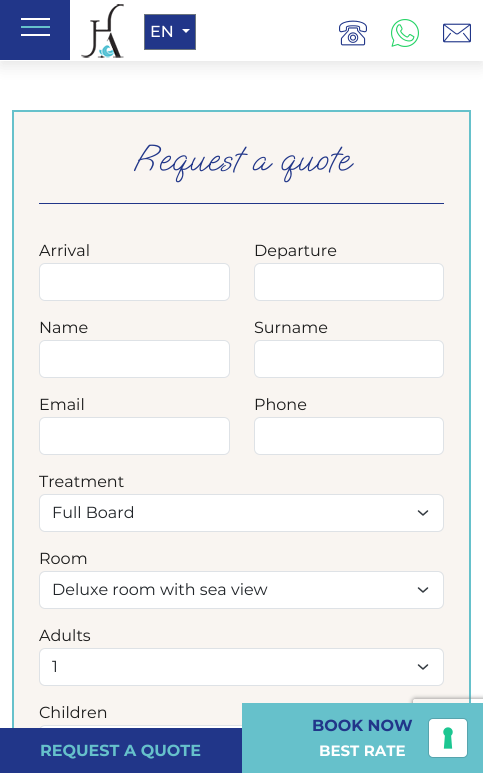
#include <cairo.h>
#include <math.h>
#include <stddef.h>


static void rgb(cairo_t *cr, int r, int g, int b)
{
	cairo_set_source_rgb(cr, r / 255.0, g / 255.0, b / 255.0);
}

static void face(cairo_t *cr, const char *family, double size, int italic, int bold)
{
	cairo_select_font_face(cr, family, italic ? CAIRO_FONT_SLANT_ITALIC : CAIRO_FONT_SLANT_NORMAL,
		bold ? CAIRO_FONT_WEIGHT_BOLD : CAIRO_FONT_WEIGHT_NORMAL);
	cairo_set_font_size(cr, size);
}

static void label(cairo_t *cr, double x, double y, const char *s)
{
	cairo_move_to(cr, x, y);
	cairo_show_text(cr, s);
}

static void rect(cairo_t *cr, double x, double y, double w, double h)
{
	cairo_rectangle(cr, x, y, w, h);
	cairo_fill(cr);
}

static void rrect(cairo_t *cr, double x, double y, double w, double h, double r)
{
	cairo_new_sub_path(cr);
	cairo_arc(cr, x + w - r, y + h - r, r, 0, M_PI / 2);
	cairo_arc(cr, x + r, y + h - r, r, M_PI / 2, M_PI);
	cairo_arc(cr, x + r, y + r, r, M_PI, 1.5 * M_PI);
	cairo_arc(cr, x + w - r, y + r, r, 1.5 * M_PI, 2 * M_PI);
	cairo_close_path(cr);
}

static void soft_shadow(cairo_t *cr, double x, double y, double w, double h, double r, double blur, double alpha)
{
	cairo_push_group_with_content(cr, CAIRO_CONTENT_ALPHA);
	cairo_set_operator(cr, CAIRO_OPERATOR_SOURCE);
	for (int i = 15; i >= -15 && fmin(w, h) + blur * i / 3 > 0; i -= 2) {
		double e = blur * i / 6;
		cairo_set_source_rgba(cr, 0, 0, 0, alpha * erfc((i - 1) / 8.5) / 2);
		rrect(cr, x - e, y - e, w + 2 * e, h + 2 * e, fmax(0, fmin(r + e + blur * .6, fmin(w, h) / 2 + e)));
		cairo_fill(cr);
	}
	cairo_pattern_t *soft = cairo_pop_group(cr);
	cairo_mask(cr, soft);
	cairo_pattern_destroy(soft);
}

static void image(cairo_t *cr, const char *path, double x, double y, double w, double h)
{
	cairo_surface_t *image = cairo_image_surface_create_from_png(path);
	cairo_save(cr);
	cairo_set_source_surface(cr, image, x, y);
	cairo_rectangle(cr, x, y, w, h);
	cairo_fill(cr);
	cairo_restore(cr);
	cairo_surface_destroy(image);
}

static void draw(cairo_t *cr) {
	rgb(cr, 255, 255, 255);
	cairo_paint(cr);
	rgb(cr, 0, 0, 0);
	soft_shadow(cr, 0, 5, 483, 61, 0, 7.5, 0.1);
	rgb(cr, 255, 255, 255);
	rect(cr, 0, 0, 483, 61);
	rgb(cr, 33, 54, 137);
	rect(cr, 0, 0, 70, 60);
	rgb(cr, 255, 255, 255);
	rect(cr, 21, 18, 29, 2);
	rgb(cr, 102, 193, 203);
	rect(cr, 21, 26, 29, 2);
	rgb(cr, 255, 255, 255);
	rect(cr, 21, 34, 29, 2);
	image(cr, "image0.png", 81, 4, 43, 54);
	rgb(cr, 33, 54, 137);
	cairo_rectangle(cr, 144.5, 14.5, 51, 35);
	cairo_fill_preserve(cr);
	rgb(cr, 108, 117, 125);
	cairo_set_line_width(cr, 1);
	cairo_stroke(cr);
	face(cr, "Montserrat Medium", 16, 0, 0);
	rgb(cr, 255, 255, 255);
	label(cr, 150, 37, "EN");
	cairo_new_path(cr);
	cairo_move_to(cr, 182, 29);
	cairo_line_to(cr, 190, 29);
	cairo_line_to(cr, 186, 33);
	cairo_close_path(cr);
	cairo_fill(cr);
	image(cr, "image1.png", 339, 20, 28, 26);
	image(cr, "image2.png", 391, 19, 28, 28);
	image(cr, "image3.png", 443, 23, 28, 20);
	rgb(cr, 249, 245, 241);
	rect(cr, 14, 112, 455, 616);
	cairo_rectangle(cr, 13, 111, 457, 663);
	rgb(cr, 102, 193, 203);
	cairo_set_line_width(cr, 2);
	cairo_stroke(cr);
	rgb(cr, 255, 255, 255);
	rrect(cr, 39.5, 725.5, 404, 37, 5.5);
	cairo_fill_preserve(cr);
	rgb(cr, 222, 226, 230);
	cairo_set_line_width(cr, 1);
	cairo_stroke(cr);
	rgb(cr, 33, 54, 137);
	rect(cr, 0, 728, 242, 45);
	face(cr, "Montserrat", 16, 0, 1);
	rgb(cr, 102, 193, 203);
	label(cr, 40, 756, "REQUEST A QUOTE");
	cairo_save(cr);
	cairo_set_fill_rule(cr, CAIRO_FILL_RULE_EVEN_ODD);
	cairo_new_path(cr);
	cairo_move_to(cr, 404, 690);
	cairo_line_to(cr, 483, 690);
	cairo_line_to(cr, 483, 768);
	cairo_line_to(cr, 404, 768);
	cairo_close_path(cr);
	cairo_move_to(cr, 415, 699);
	cairo_line_to(cr, 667, 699);
	cairo_curve_to(cr, 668, 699, 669, 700, 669, 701);
	cairo_line_to(cr, 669, 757);
	cairo_curve_to(cr, 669, 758, 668, 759, 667, 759);
	cairo_line_to(cr, 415, 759);
	cairo_curve_to(cr, 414, 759, 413, 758, 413, 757);
	cairo_line_to(cr, 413, 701);
	cairo_curve_to(cr, 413, 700, 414, 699, 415, 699);
	cairo_close_path(cr);
	cairo_clip(cr);
	rgb(cr, 128, 128, 128);
	soft_shadow(cr, 413, 699, 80, 60, 2, 2.5, 1);
	cairo_restore(cr);
	rect(cr, 242, 703, 241, 70);
	rgb(cr, 33, 54, 137);
	label(cr, 312, 731, "BOOK NOW");
	face(cr, "Montserrat", 15, 0, 1);
	rgb(cr, 255, 255, 255);
	label(cr, 319, 756, "BEST RATE");
	rgb(cr, 33, 54, 137);
	rect(cr, 39, 203, 405, 1);
	face(cr, "Oooh Baby", 38, 0, 0);
	label(cr, 134, 170, "Request a quote");
	face(cr, "Montserrat", 16, 0, 0);
	rgb(cr, 27, 27, 27);
	label(cr, 39, 256, "Arrival");
	rgb(cr, 255, 255, 255);
	rrect(cr, 39.5, 263.5, 190, 37, 5.5);
	cairo_fill_preserve(cr);
	rgb(cr, 222, 226, 230);
	cairo_stroke(cr);
	rgb(cr, 27, 27, 27);
	label(cr, 254, 256, "Departure");
	rgb(cr, 255, 255, 255);
	rrect(cr, 254.5, 263.5, 189, 37, 5.5);
	cairo_fill_preserve(cr);
	rgb(cr, 222, 226, 230);
	cairo_stroke(cr);
	rgb(cr, 27, 27, 27);
	label(cr, 39, 333, "Name");
	rgb(cr, 255, 255, 255);
	rrect(cr, 39.5, 340.5, 190, 37, 5.5);
	cairo_fill_preserve(cr);
	rgb(cr, 222, 226, 230);
	cairo_stroke(cr);
	rgb(cr, 27, 27, 27);
	label(cr, 254, 333, "Surname");
	rgb(cr, 255, 255, 255);
	rrect(cr, 254.5, 340.5, 189, 37, 5.5);
	cairo_fill_preserve(cr);
	rgb(cr, 222, 226, 230);
	cairo_stroke(cr);
	rgb(cr, 27, 27, 27);
	label(cr, 39, 410, "Email");
	rgb(cr, 255, 255, 255);
	rrect(cr, 39.5, 417.5, 190, 37, 5.5);
	cairo_fill_preserve(cr);
	rgb(cr, 222, 226, 230);
	cairo_stroke(cr);
	rgb(cr, 27, 27, 27);
	label(cr, 254, 410, "Phone");
	rgb(cr, 255, 255, 255);
	rrect(cr, 254.5, 417.5, 189, 37, 5.5);
	cairo_fill_preserve(cr);
	rgb(cr, 222, 226, 230);
	cairo_stroke(cr);
	rgb(cr, 27, 27, 27);
	label(cr, 39, 487, "Treatment");
	rgb(cr, 255, 255, 255);
	rrect(cr, 40, 495, 403, 36, 5);
	cairo_fill(cr);
	cairo_new_path(cr);
	cairo_move_to(cr, 418.5, 511);
	cairo_line_to(cr, 423, 515);
	cairo_line_to(cr, 427.5, 511);
	rgb(cr, 52, 58, 64);
	cairo_set_line_width(cr, 1.5);
	cairo_set_line_cap(cr, CAIRO_LINE_CAP_ROUND);
	cairo_set_line_join(cr, CAIRO_LINE_JOIN_ROUND);
	cairo_stroke(cr);
	rrect(cr, 39.5, 494.5, 404, 37, 5.5);
	rgb(cr, 222, 226, 230);
	cairo_set_line_width(cr, 1);
	cairo_set_line_cap(cr, CAIRO_LINE_CAP_BUTT);
	cairo_set_line_join(cr, CAIRO_LINE_JOIN_MITER);
	cairo_stroke(cr);
	rgb(cr, 33, 37, 41);
	label(cr, 52, 518, "Full Board");
	rgb(cr, 27, 27, 27);
	label(cr, 39, 564, "Room");
	rgb(cr, 255, 255, 255);
	rrect(cr, 40, 572, 403, 36, 5);
	cairo_fill(cr);
	cairo_new_path(cr);
	cairo_move_to(cr, 418.5, 588);
	cairo_line_to(cr, 423, 592);
	cairo_line_to(cr, 427.5, 588);
	rgb(cr, 52, 58, 64);
	cairo_set_line_width(cr, 1.5);
	cairo_set_line_cap(cr, CAIRO_LINE_CAP_ROUND);
	cairo_set_line_join(cr, CAIRO_LINE_JOIN_ROUND);
	cairo_stroke(cr);
	rrect(cr, 39.5, 571.5, 404, 37, 5.5);
	rgb(cr, 222, 226, 230);
	cairo_set_line_width(cr, 1);
	cairo_set_line_cap(cr, CAIRO_LINE_CAP_BUTT);
	cairo_set_line_join(cr, CAIRO_LINE_JOIN_MITER);
	cairo_stroke(cr);
	rgb(cr, 33, 37, 41);
	label(cr, 52, 595, "Deluxe room with sea view");
	rgb(cr, 27, 27, 27);
	label(cr, 39, 641, "Adults");
	rgb(cr, 255, 255, 255);
	rrect(cr, 40, 649, 403, 36, 5);
	cairo_fill(cr);
	cairo_new_path(cr);
	cairo_move_to(cr, 418.5, 665);
	cairo_line_to(cr, 423, 669);
	cairo_line_to(cr, 427.5, 665);
	rgb(cr, 52, 58, 64);
	cairo_set_line_width(cr, 1.5);
	cairo_set_line_cap(cr, CAIRO_LINE_CAP_ROUND);
	cairo_set_line_join(cr, CAIRO_LINE_JOIN_ROUND);
	cairo_stroke(cr);
	rrect(cr, 39.5, 648.5, 404, 37, 5.5);
	rgb(cr, 222, 226, 230);
	cairo_set_line_width(cr, 1);
	cairo_set_line_cap(cr, CAIRO_LINE_CAP_BUTT);
	cairo_set_line_join(cr, CAIRO_LINE_JOIN_MITER);
	cairo_stroke(cr);
	rgb(cr, 33, 37, 41);
	label(cr, 52, 672, "1");
	rgb(cr, 27, 27, 27);
	label(cr, 39, 718, "Children");
	rrect(cr, 428.5, 718.5, 39, 39, 4.5);
	rgb(cr, 87, 164, 173);
	cairo_stroke(cr);
	rgb(cr, 255, 255, 255);
	rrect(cr, 429, 719, 38, 38, 4);
	cairo_fill(cr);
	image(cr, "image4.png", 443, 727, 10, 22);
}

int main(void) {
	cairo_surface_t *surface = cairo_image_surface_create(CAIRO_FORMAT_RGB24, 483, 773);
	cairo_t *cr = cairo_create(surface);
	cairo_font_options_t *options = cairo_font_options_create();
	cairo_font_options_set_hint_metrics(options, CAIRO_HINT_METRICS_OFF);
	cairo_font_options_set_hint_style(options, CAIRO_HINT_STYLE_NONE);
	cairo_set_font_options(cr, options);
	cairo_set_miter_limit(cr, 4);
	draw(cr);
	cairo_surface_write_to_png(surface, "render.png");
	cairo_font_options_destroy(options);
	cairo_destroy(cr);
	cairo_surface_destroy(surface);
	return 0;
}
